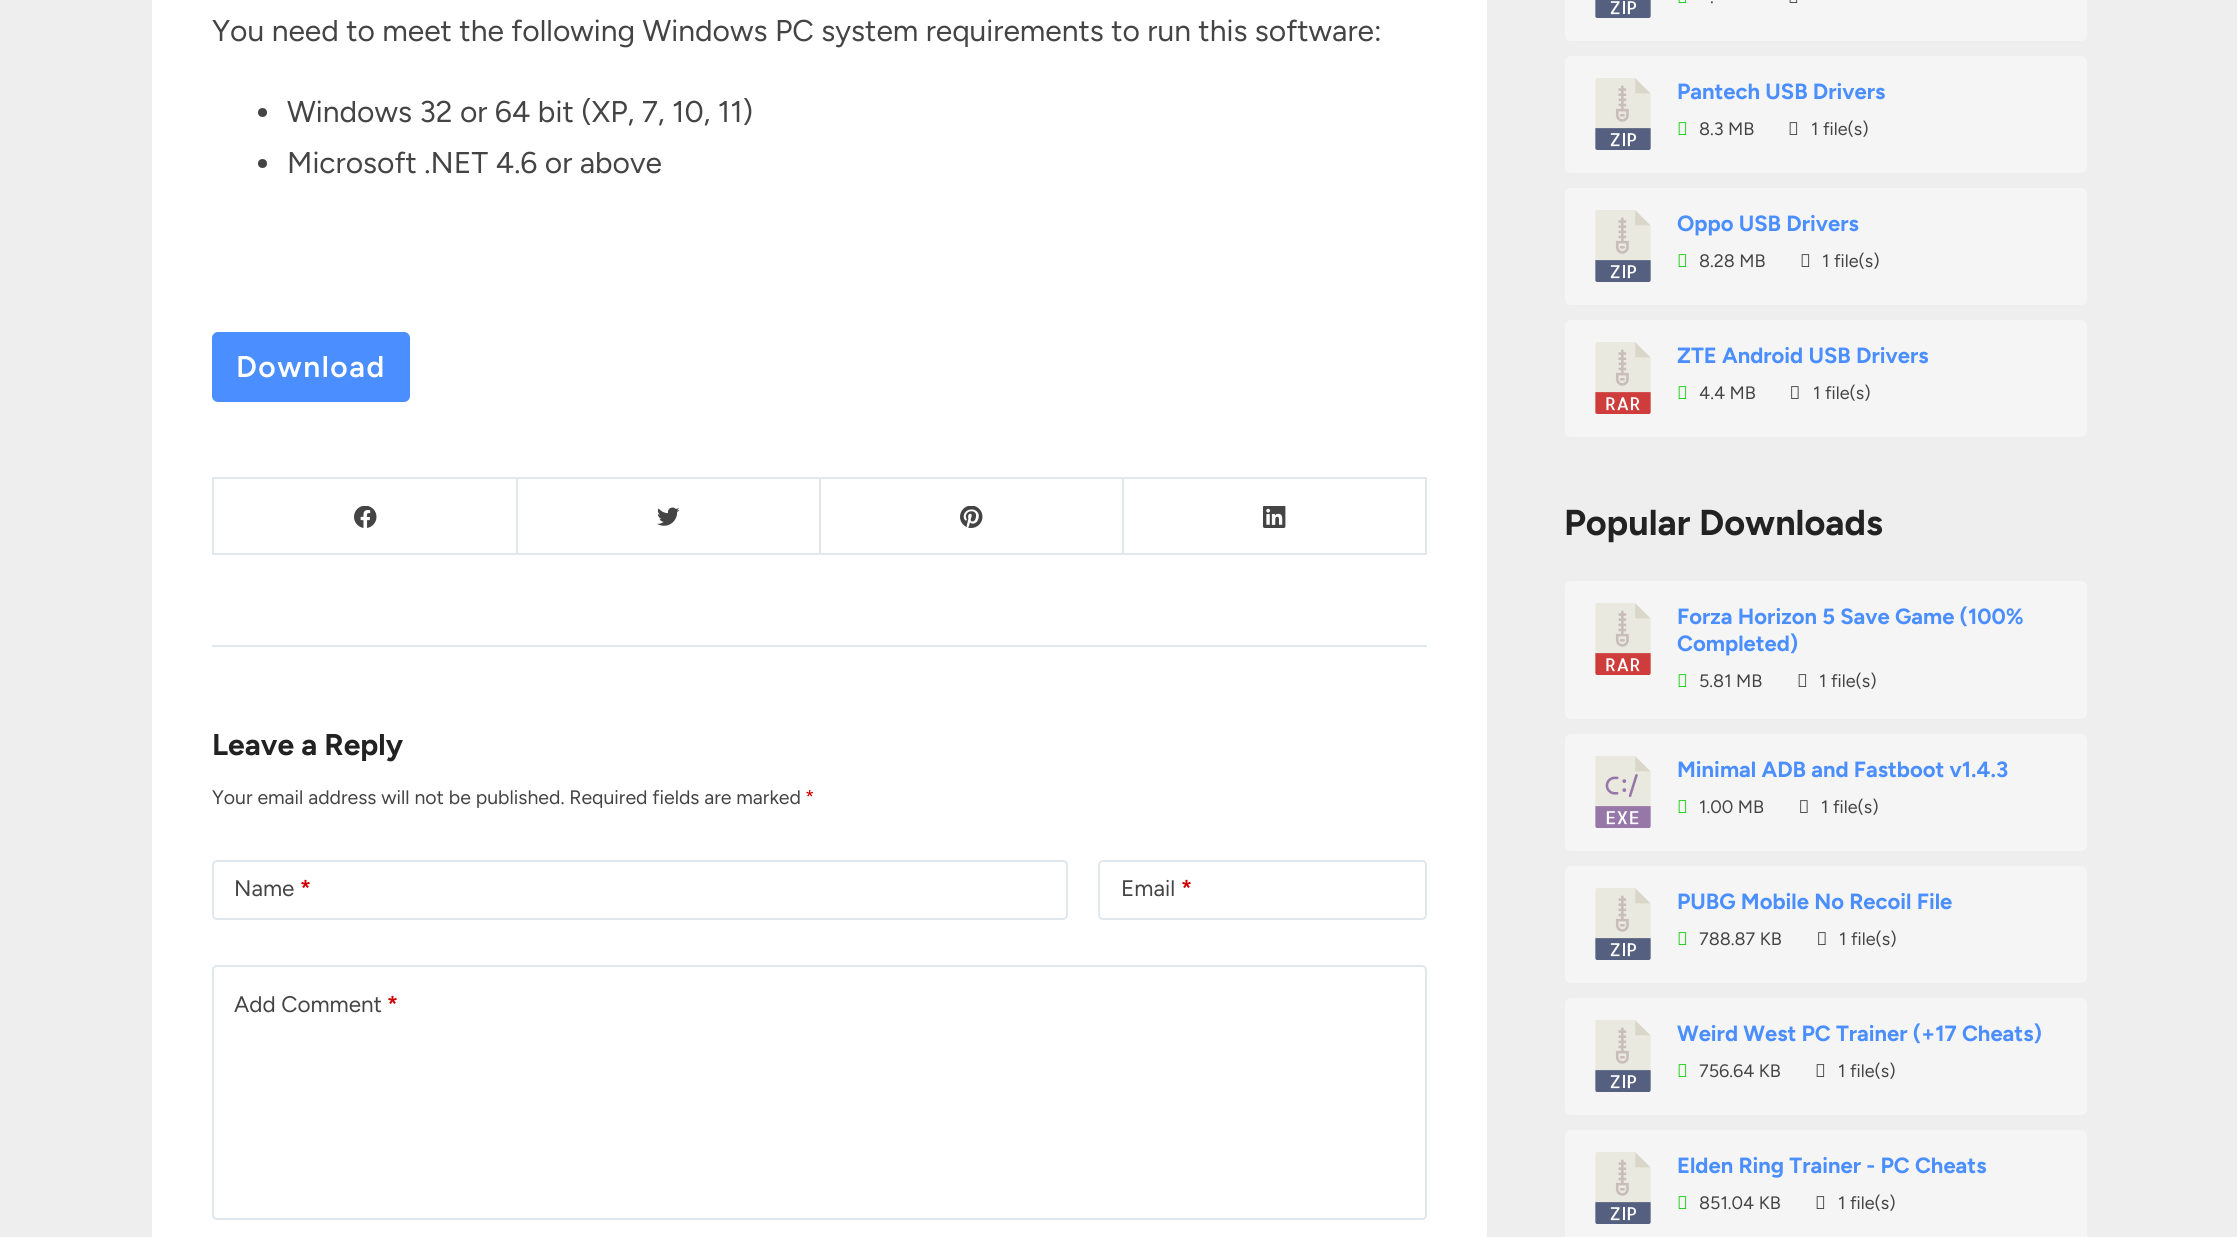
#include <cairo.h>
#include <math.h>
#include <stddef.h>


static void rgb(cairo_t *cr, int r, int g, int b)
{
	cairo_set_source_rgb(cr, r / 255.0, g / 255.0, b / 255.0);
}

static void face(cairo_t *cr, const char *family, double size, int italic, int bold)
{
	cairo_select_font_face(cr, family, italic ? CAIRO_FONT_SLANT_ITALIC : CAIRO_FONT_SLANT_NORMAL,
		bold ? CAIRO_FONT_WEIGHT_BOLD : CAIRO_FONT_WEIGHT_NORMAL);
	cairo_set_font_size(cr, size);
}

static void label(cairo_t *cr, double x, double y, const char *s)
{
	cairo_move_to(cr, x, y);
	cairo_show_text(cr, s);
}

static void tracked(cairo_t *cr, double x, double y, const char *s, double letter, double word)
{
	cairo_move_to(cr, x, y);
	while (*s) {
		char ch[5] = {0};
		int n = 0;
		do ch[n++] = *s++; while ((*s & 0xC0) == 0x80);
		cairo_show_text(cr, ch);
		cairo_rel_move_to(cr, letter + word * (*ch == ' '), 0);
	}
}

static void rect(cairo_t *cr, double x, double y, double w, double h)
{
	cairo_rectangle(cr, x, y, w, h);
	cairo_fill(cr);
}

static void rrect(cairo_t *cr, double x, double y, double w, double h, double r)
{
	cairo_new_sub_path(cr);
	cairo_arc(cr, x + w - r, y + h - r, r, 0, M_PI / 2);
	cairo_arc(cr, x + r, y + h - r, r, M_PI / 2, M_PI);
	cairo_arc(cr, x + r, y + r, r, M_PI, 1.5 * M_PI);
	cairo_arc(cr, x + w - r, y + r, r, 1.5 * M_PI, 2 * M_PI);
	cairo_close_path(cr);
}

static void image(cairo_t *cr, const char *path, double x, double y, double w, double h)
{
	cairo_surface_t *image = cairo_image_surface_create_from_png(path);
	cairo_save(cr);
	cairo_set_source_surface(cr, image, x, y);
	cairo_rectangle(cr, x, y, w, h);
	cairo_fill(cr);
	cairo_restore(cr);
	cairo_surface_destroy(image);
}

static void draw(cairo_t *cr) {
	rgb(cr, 238, 238, 238);
	cairo_paint(cr);
	rgb(cr, 255, 255, 255);
	rect(cr, 152, 0, 1335, 1237);
	face(cr, "Figtree", 30, 0, 0);
	rgb(cr, 68, 68, 68);
	label(cr, 212, 41, "You need to meet the following Windows PC system requirements to run this software:");
	cairo_new_path(cr);
	cairo_arc(cr, 262.5, 112.5, 4.5, 0, 2 * M_PI);
	cairo_fill(cr);
	label(cr, 287, 122, "Windows 32 or 64 bit (XP, 7, 10, 11)");
	cairo_new_path(cr);
	cairo_arc(cr, 262.5, 163.5, 4.5, 0, 2 * M_PI);
	cairo_fill(cr);
	label(cr, 287, 173, "Microsoft .NET 4.6 or above");
	rgb(cr, 74, 142, 255);
	rrect(cr, 213, 333, 196, 68, 5);
	cairo_fill_preserve(cr);
	cairo_stroke(cr);
	face(cr, "Figtree SemiBold", 30, 0, 0);
	rgb(cr, 255, 255, 255);
	tracked(cr, 236, 377, "Download", 1.5, 0);
	cairo_rectangle(cr, 213, 478, 1213, 76);
	rgb(cr, 225, 232, 237);
	cairo_stroke(cr);
	rect(cr, 516, 479, 2, 75);
	image(cr, "image0.png", 354, 506, 23, 22);
	rect(cr, 819, 479, 2, 75);
	image(cr, "image1.png", 657, 507, 23, 19);
	rect(cr, 1122, 479, 2, 75);
	image(cr, "image2.png", 960, 506, 23, 22);
	image(cr, "image3.png", 1263, 506, 23, 22);
	rect(cr, 212, 645, 1215, 2);
	face(cr, "Figtree", 30, 0, 1);
	rgb(cr, 34, 34, 34);
	label(cr, 212, 755, "Leave a Reply");
	face(cr, "Figtree", 19.5, 0, 0);
	rgb(cr, 68, 68, 68);
	label(cr, 212, 804, "Your email address will not be published. Required fields are marked");
	rgb(cr, 204, 0, 0);
	label(cr, 805, 804, "*");
	rrect(cr, 213, 861, 854, 58, 4);
	rgb(cr, 225, 232, 237);
	cairo_stroke(cr);
	face(cr, "Figtree", 22.5, 0, 0);
	rgb(cr, 68, 68, 68);
	label(cr, 234, 896, "Name");
	face(cr, "Figtree", 22.5, 0, 1);
	rgb(cr, 204, 0, 0);
	label(cr, 300, 896, "*");
	rrect(cr, 1099, 861, 327, 58, 4);
	rgb(cr, 225, 232, 237);
	cairo_stroke(cr);
	face(cr, "Figtree", 22.5, 0, 0);
	rgb(cr, 68, 68, 68);
	label(cr, 1121, 896, "Email");
	face(cr, "Figtree", 22.5, 0, 1);
	rgb(cr, 204, 0, 0);
	label(cr, 1181, 896, "*");
	rrect(cr, 213, 966, 1213, 253, 4);
	rgb(cr, 225, 232, 237);
	cairo_stroke(cr);
	face(cr, "Figtree", 22.5, 0, 0);
	rgb(cr, 68, 68, 68);
	label(cr, 234, 1012, "Add Comment");
	face(cr, "Figtree", 22.5, 0, 1);
	rgb(cr, 204, 0, 0);
	label(cr, 387, 1012, "*");
	rgb(cr, 245, 245, 245);
	rrect(cr, 1565, -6, 522, 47, 6);
	cairo_fill(cr);
	image(cr, "image4.png", 1595, 0, 56, 18);
	image(cr, "image5.png", 1678, 0, 9, 3);
	face(cr, "Figtree", 18, 0, 0);
	rgb(cr, 68, 68, 68);
	label(cr, 1710, 3, ".");
	image(cr, "image6.png", 1789, 0, 9, 3);
	rgb(cr, 245, 245, 245);
	rrect(cr, 1565, 56, 522, 117, 6);
	cairo_fill(cr);
	image(cr, "image7.png", 1595, 78, 56, 72);
	face(cr, "Figtree", 22, 0, 1);
	rgb(cr, 74, 142, 255);
	label(cr, 1677, 99, "Pantech USB Drivers");
	image(cr, "image8.png", 1678, 122, 9, 13);
	face(cr, "Figtree", 18, 0, 0);
	rgb(cr, 68, 68, 68);
	label(cr, 1699, 135, "8.3 MB");
	image(cr, "image9.png", 1789, 122, 9, 13);
	label(cr, 1811, 135, "1 file(s)");
	rgb(cr, 245, 245, 245);
	rrect(cr, 1565, 188, 522, 117, 6);
	cairo_fill(cr);
	image(cr, "image7.png", 1595, 210, 56, 72);
	face(cr, "Figtree", 22, 0, 1);
	rgb(cr, 74, 142, 255);
	label(cr, 1677, 231, "Oppo USB Drivers");
	image(cr, "image8.png", 1678, 254, 9, 13);
	face(cr, "Figtree", 18, 0, 0);
	rgb(cr, 68, 68, 68);
	label(cr, 1699, 267, "8.28 MB");
	image(cr, "image9.png", 1801, 254, 9, 13);
	label(cr, 1822, 267, "1 file(s)");
	rgb(cr, 245, 245, 245);
	rrect(cr, 1565, 320, 522, 117, 6);
	cairo_fill(cr);
	image(cr, "image10.png", 1595, 342, 56, 72);
	face(cr, "Figtree", 22, 0, 1);
	rgb(cr, 74, 142, 255);
	label(cr, 1677, 363, "ZTE Android USB Drivers");
	image(cr, "image8.png", 1678, 386, 9, 13);
	face(cr, "Figtree", 18, 0, 0);
	rgb(cr, 68, 68, 68);
	label(cr, 1699, 399, "4.4 MB");
	image(cr, "image11.png", 1791, 386, 8, 13);
	label(cr, 1813, 399, "1 file(s)");
	face(cr, "Figtree", 36, 0, 1);
	rgb(cr, 34, 34, 34);
	label(cr, 1564, 535, "Popular Downloads");
	rgb(cr, 245, 245, 245);
	rrect(cr, 1565, 581, 522, 138, 6);
	cairo_fill(cr);
	image(cr, "image10.png", 1595, 603, 56, 72);
	face(cr, "Figtree", 22, 0, 1);
	rgb(cr, 74, 142, 255);
	label(cr, 1677, 624, "Forza Horizon 5 Save Game (100%");
	label(cr, 1677, 651, "Completed)");
	image(cr, "image8.png", 1678, 674, 9, 13);
	face(cr, "Figtree", 18, 0, 0);
	rgb(cr, 68, 68, 68);
	label(cr, 1699, 687, "5.81 MB");
	image(cr, "image9.png", 1798, 674, 9, 13);
	label(cr, 1819, 687, "1 file(s)");
	rgb(cr, 245, 245, 245);
	rrect(cr, 1565, 734, 522, 117, 6);
	cairo_fill(cr);
	image(cr, "image12.png", 1595, 756, 56, 72);
	face(cr, "Figtree", 22, 0, 1);
	rgb(cr, 74, 142, 255);
	label(cr, 1677, 777, "Minimal ADB and Fastboot v1.4.3");
	image(cr, "image8.png", 1678, 800, 9, 13);
	face(cr, "Figtree", 18, 0, 0);
	rgb(cr, 68, 68, 68);
	label(cr, 1699, 813, "1.00 MB");
	image(cr, "image11.png", 1800, 800, 8, 13);
	label(cr, 1821, 813, "1 file(s)");
	rgb(cr, 245, 245, 245);
	rrect(cr, 1565, 866, 522, 117, 6);
	cairo_fill(cr);
	image(cr, "image7.png", 1595, 888, 56, 72);
	face(cr, "Figtree", 22, 0, 1);
	rgb(cr, 74, 142, 255);
	label(cr, 1677, 909, "PUBG Mobile No Recoil File");
	image(cr, "image8.png", 1678, 932, 9, 13);
	face(cr, "Figtree", 18, 0, 0);
	rgb(cr, 68, 68, 68);
	label(cr, 1699, 945, "788.87 KB");
	image(cr, "image11.png", 1818, 932, 8, 13);
	label(cr, 1839, 945, "1 file(s)");
	rgb(cr, 245, 245, 245);
	rrect(cr, 1565, 998, 522, 117, 6);
	cairo_fill(cr);
	image(cr, "image7.png", 1595, 1020, 56, 72);
	face(cr, "Figtree", 22, 0, 1);
	rgb(cr, 74, 142, 255);
	label(cr, 1677, 1041, "Weird West PC Trainer (+17 Cheats)");
	image(cr, "image8.png", 1678, 1064, 9, 13);
	face(cr, "Figtree", 18, 0, 0);
	rgb(cr, 68, 68, 68);
	label(cr, 1699, 1077, "756.64 KB");
	image(cr, "image9.png", 1816, 1064, 9, 13);
	label(cr, 1838, 1077, "1 file(s)");
	rgb(cr, 245, 245, 245);
	rrect(cr, 1565, 1130, 522, 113, 6);
	cairo_fill(cr);
	image(cr, "image7.png", 1595, 1152, 56, 72);
	face(cr, "Figtree", 22, 0, 1);
	rgb(cr, 74, 142, 255);
	label(cr, 1677, 1173, "Elden Ring Trainer - PC Cheats");
	image(cr, "image8.png", 1678, 1196, 9, 13);
	face(cr, "Figtree", 18, 0, 0);
	rgb(cr, 68, 68, 68);
	label(cr, 1699, 1209, "851.04 KB");
	image(cr, "image9.png", 1816, 1196, 9, 13);
	label(cr, 1838, 1209, "1 file(s)");
}

int main(void) {
	cairo_surface_t *surface = cairo_image_surface_create(CAIRO_FORMAT_RGB24, 2237, 1237);
	cairo_t *cr = cairo_create(surface);
	cairo_font_options_t *options = cairo_font_options_create();
	cairo_font_options_set_hint_metrics(options, CAIRO_HINT_METRICS_OFF);
	cairo_font_options_set_hint_style(options, CAIRO_HINT_STYLE_NONE);
	cairo_set_font_options(cr, options);
	cairo_set_miter_limit(cr, 4);
	draw(cr);
	cairo_surface_write_to_png(surface, "render.png");
	cairo_font_options_destroy(options);
	cairo_destroy(cr);
	cairo_surface_destroy(surface);
	return 0;
}
